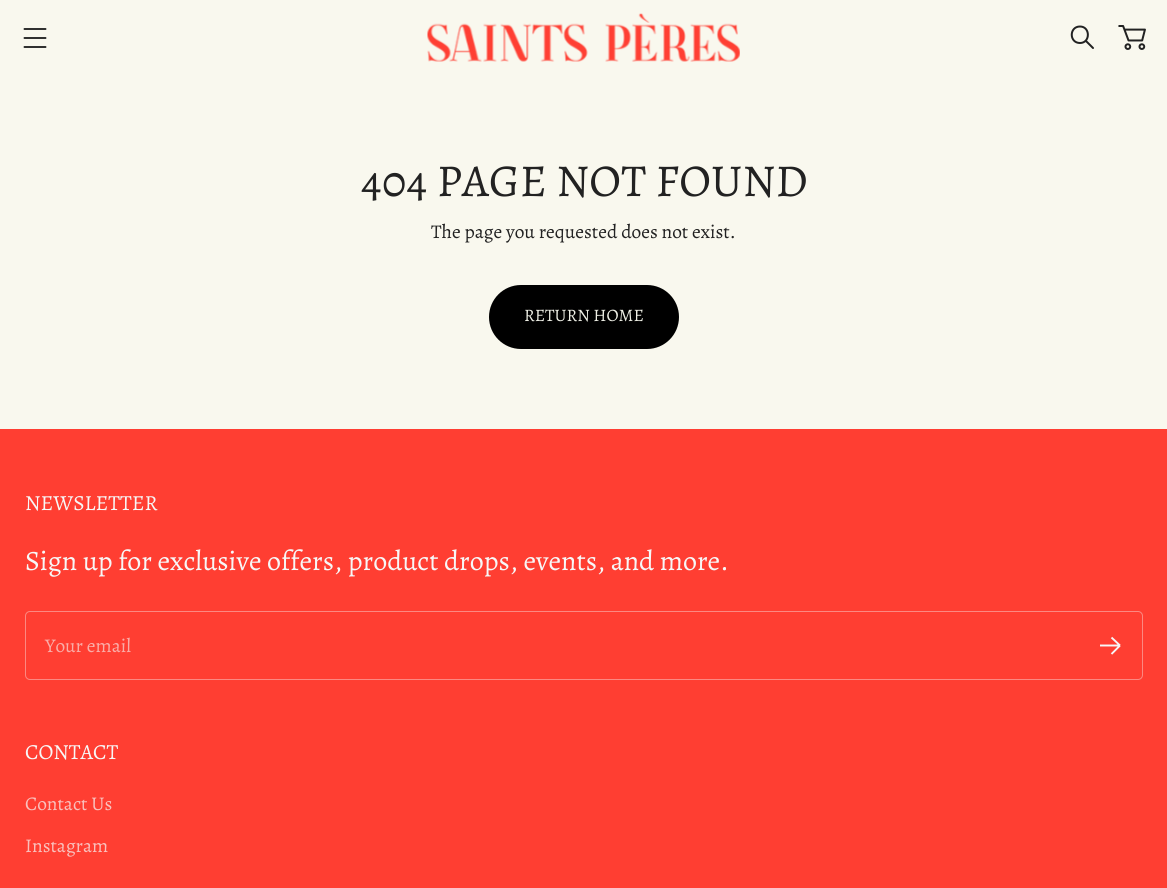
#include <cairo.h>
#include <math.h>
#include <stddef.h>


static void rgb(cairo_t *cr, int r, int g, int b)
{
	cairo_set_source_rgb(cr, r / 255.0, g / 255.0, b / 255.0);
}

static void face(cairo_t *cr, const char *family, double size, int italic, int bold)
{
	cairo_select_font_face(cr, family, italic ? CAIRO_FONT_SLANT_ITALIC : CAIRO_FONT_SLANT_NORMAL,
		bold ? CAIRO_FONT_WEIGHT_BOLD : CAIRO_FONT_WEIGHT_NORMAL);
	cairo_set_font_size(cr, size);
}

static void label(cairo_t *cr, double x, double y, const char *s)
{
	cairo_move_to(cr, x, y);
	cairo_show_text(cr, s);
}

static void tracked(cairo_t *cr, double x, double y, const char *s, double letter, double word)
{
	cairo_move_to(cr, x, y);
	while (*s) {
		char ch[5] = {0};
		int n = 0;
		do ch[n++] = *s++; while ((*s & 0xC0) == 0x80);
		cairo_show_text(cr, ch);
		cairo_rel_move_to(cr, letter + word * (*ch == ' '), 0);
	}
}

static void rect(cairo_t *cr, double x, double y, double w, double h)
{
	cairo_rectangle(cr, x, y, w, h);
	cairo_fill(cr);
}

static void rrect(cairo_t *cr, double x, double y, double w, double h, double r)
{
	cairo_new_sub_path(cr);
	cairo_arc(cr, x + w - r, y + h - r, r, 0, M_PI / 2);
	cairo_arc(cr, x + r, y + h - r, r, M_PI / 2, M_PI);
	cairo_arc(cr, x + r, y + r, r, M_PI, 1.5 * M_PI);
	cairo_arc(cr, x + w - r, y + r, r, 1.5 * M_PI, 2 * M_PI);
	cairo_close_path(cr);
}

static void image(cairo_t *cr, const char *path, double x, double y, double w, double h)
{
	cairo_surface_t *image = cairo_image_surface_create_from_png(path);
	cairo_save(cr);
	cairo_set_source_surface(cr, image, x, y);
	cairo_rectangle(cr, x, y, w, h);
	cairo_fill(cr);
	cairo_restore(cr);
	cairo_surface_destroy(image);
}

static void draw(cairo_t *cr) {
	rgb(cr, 249, 248, 238);
	cairo_paint(cr);
	cairo_new_path(cr);
	cairo_move_to(cr, 24.5, 38);
	cairo_line_to(cr, 45.5, 38);
	cairo_move_to(cr, 24.5, 47);
	cairo_line_to(cr, 45.5, 47);
	cairo_move_to(cr, 24.5, 29);
	cairo_line_to(cr, 45.5, 29);
	rgb(cr, 34, 34, 34);
	cairo_set_line_width(cr, 1.9);
	cairo_set_line_cap(cr, CAIRO_LINE_CAP_ROUND);
	cairo_set_line_join(cr, CAIRO_LINE_JOIN_ROUND);
	cairo_stroke(cr);
	image(cr, "image0.png", 427, 13, 313, 49);
	cairo_new_path(cr);
	cairo_move_to(cr, 1080, 43);
	cairo_curve_to(cr, 1090.5, 43, 1090.5, 26.5, 1080, 26.5);
	cairo_curve_to(cr, 1069, 26.5, 1069, 43, 1080, 43);
	cairo_close_path(cr);
	cairo_move_to(cr, 1086, 41);
	cairo_line_to(cr, 1093, 48);
	cairo_set_line_width(cr, 2);
	cairo_stroke(cr);
	image(cr, "image1.png", 1118, 25, 28, 25);
	face(cr, "Alegreya", 45.75, 0, 0);
	tracked(cr, 361, 196, "404 PAGE NOT FOUND", 0.2, 0);
	face(cr, "Alegreya", 19.4, 0, 0);
	label(cr, 431, 238, "The page you requested does not exist.");
	cairo_save(cr);
	rrect(cr, 489, 285, 190, 64, 32);
	cairo_clip(cr);
	rgb(cr, 0, 0, 0);
	rrect(cr, 488, 284, 192, 66, 33);
	cairo_fill(cr);
	cairo_restore(cr);
	face(cr, "Alegreya", 17.5, 0, 0);
	rgb(cr, 238, 239, 229);
	label(cr, 524, 321, "RETURN HOME");
	rgb(cr, 255, 62, 50);
	rect(cr, 0, 429, 1167, 459);
	face(cr, "Alegreya", 21.5, 0, 0);
	rgb(cr, 247, 247, 247);
	label(cr, 25, 510, "NEWSLETTER");
	face(cr, "Alegreya", 28, 0, 0);
	label(cr, 25, 570, "Sign up for exclusive offers, product drops, events, and more.");
	rrect(cr, 25.5, 611.5, 1117, 68, 4.5);
	rgb(cr, 252, 136, 129);
	cairo_set_line_width(cr, 1);
	cairo_set_line_cap(cr, CAIRO_LINE_CAP_BUTT);
	cairo_set_line_join(cr, CAIRO_LINE_JOIN_MITER);
	cairo_stroke(cr);
	face(cr, "Alegreya", 19.4, 0, 0);
	rgb(cr, 250, 173, 168);
	label(cr, 45, 652, "Your email");
	cairo_new_path(cr);
	cairo_move_to(cr, 1100, 645.5);
	cairo_line_to(cr, 1120, 645.5);
	cairo_move_to(cr, 1120, 645.5);
	cairo_line_to(cr, 1111.5, 637.5);
	cairo_move_to(cr, 1120, 645.5);
	cairo_line_to(cr, 1111.5, 654);
	rgb(cr, 247, 247, 247);
	cairo_set_line_width(cr, 1.9);
	cairo_stroke(cr);
	face(cr, "Alegreya", 21.5, 0, 0);
	label(cr, 25, 759, "CONTACT");
	face(cr, "Alegreya", 19.4, 0, 0);
	rgb(cr, 249, 192, 188);
	label(cr, 25, 810, "Contact Us");
	label(cr, 25, 852, "Instagram");
}

int main(void) {
	cairo_surface_t *surface = cairo_image_surface_create(CAIRO_FORMAT_RGB24, 1167, 888);
	cairo_t *cr = cairo_create(surface);
	cairo_font_options_t *options = cairo_font_options_create();
	cairo_font_options_set_hint_metrics(options, CAIRO_HINT_METRICS_OFF);
	cairo_font_options_set_hint_style(options, CAIRO_HINT_STYLE_NONE);
	cairo_set_font_options(cr, options);
	cairo_set_miter_limit(cr, 4);
	draw(cr);
	cairo_surface_write_to_png(surface, "render.png");
	cairo_font_options_destroy(options);
	cairo_destroy(cr);
	cairo_surface_destroy(surface);
	return 0;
}
